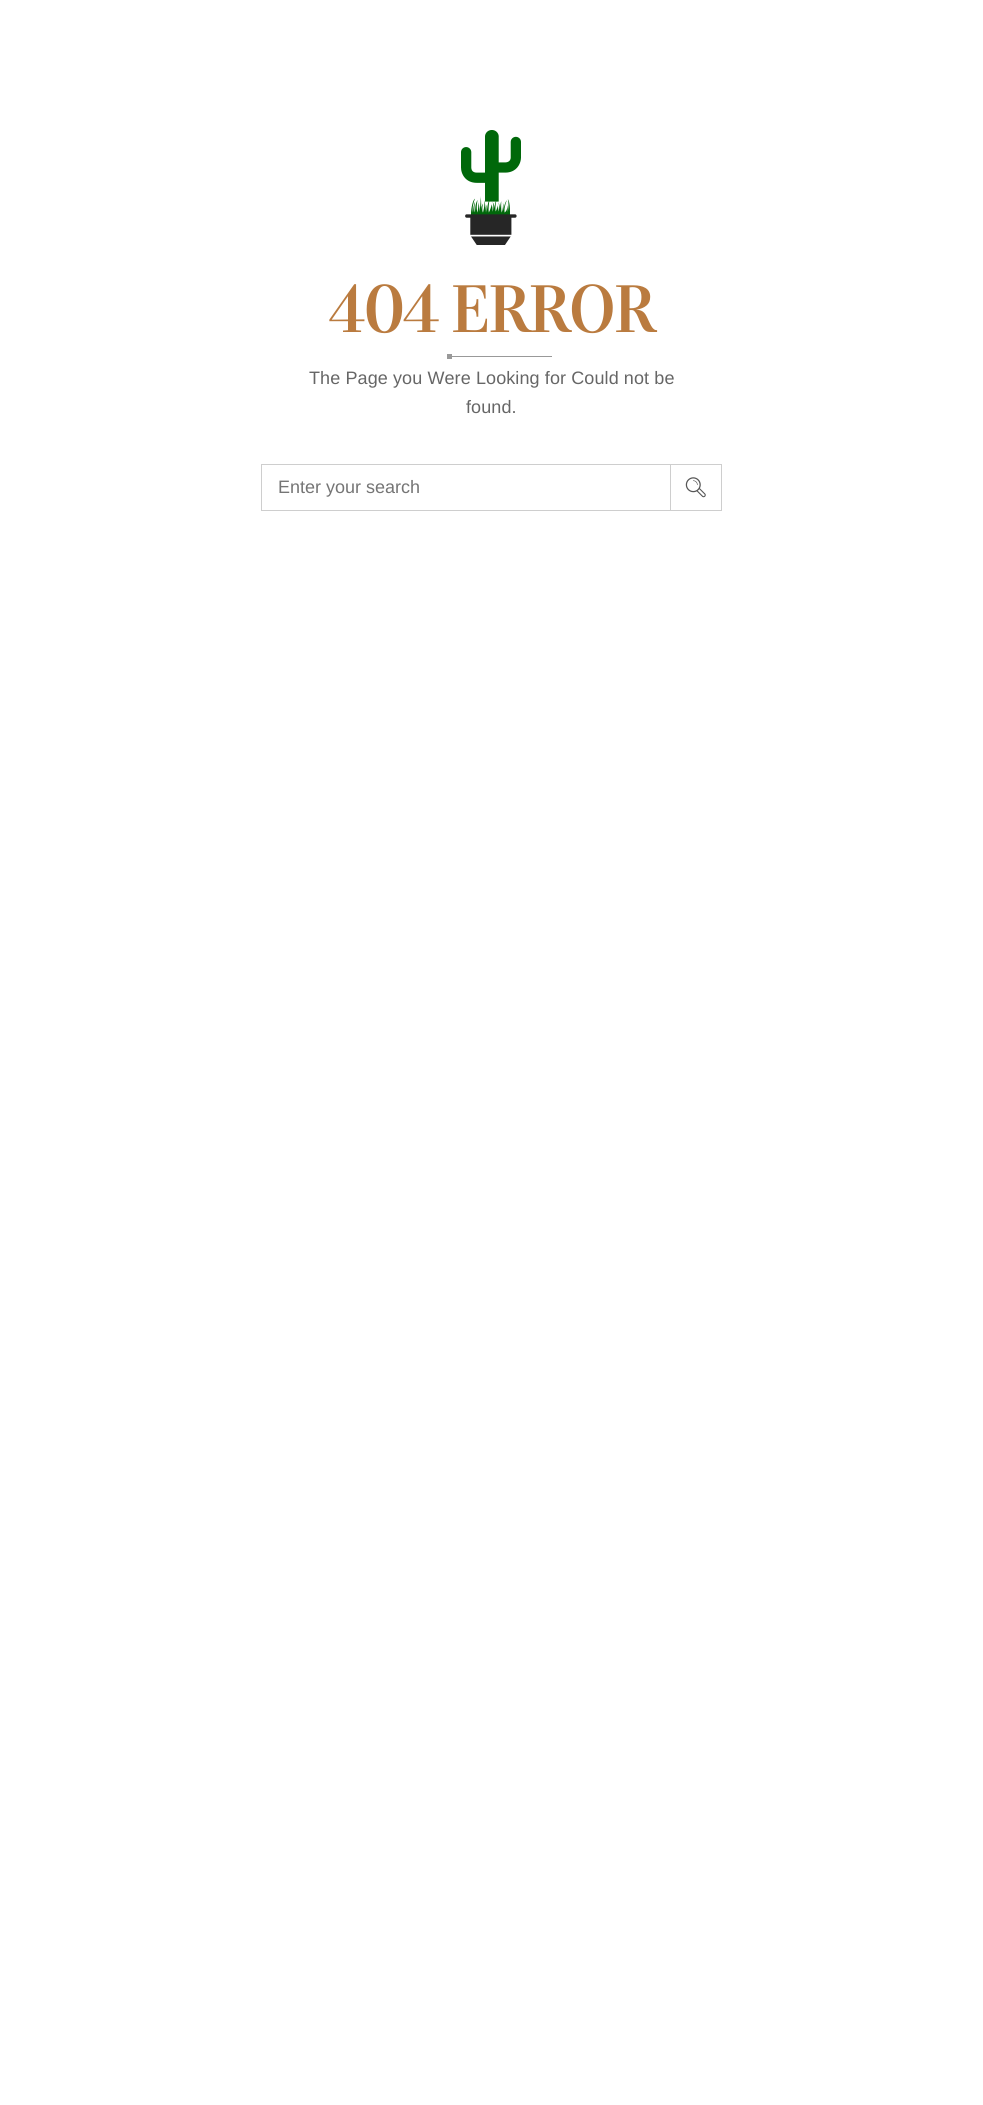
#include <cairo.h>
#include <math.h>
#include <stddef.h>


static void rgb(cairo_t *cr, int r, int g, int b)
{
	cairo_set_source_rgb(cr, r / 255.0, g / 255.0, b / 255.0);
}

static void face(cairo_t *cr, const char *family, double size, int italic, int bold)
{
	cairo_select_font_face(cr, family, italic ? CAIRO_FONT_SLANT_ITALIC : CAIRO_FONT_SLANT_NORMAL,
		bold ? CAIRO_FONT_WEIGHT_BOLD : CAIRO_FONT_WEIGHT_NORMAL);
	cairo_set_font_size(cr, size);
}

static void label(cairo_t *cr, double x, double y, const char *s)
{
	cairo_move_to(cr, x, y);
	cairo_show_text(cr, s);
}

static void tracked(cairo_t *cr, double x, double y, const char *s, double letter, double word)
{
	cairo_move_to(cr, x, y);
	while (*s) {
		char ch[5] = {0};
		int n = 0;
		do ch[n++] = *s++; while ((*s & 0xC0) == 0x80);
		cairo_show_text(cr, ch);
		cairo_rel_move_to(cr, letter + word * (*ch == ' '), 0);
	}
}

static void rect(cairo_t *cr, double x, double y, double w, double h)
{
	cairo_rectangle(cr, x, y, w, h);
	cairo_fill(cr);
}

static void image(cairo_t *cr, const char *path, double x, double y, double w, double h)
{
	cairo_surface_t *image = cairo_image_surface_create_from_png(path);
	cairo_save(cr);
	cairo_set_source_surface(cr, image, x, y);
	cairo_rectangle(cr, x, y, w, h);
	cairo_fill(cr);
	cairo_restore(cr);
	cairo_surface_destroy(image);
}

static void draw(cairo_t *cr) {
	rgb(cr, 255, 255, 255);
	cairo_paint(cr);
	image(cr, "image0.png", 461, 130, 60, 115);
	face(cr, "Vidaloka", 67, 0, 0);
	rgb(cr, 186, 123, 63);
	tracked(cr, 329, 332, "404 ERROR", -2, 0);
	rgb(cr, 153, 153, 153);
	rect(cr, 447, 354, 5, 5);
	rect(cr, 452, 356, 100, 1);
	face(cr, "Liberation Sans", 18, 0, 0);
	rgb(cr, 102, 102, 102);
	tracked(cr, 309, 384, "The Page you Were Looking for Could not be", 0.1, 0);
	tracked(cr, 466, 413, "found.", 0.1, 0);
	cairo_rectangle(cr, 261.5, 464.5, 460, 46);
	rgb(cr, 206, 206, 206);
	cairo_set_line_width(cr, 1);
	cairo_stroke(cr);
	rgb(cr, 117, 117, 117);
	label(cr, 278, 493, "Enter your search");
	rgb(cr, 206, 206, 206);
	rect(cr, 670, 464, 1, 47);
	image(cr, "image1.png", 685, 477, 21, 21);
}

int main(void) {
	cairo_surface_t *surface = cairo_image_surface_create(CAIRO_FORMAT_RGB24, 983, 2105);
	cairo_t *cr = cairo_create(surface);
	cairo_font_options_t *options = cairo_font_options_create();
	cairo_font_options_set_hint_metrics(options, CAIRO_HINT_METRICS_OFF);
	cairo_font_options_set_hint_style(options, CAIRO_HINT_STYLE_NONE);
	cairo_set_font_options(cr, options);
	cairo_set_miter_limit(cr, 4);
	draw(cr);
	cairo_surface_write_to_png(surface, "render.png");
	cairo_font_options_destroy(options);
	cairo_destroy(cr);
	cairo_surface_destroy(surface);
	return 0;
}
